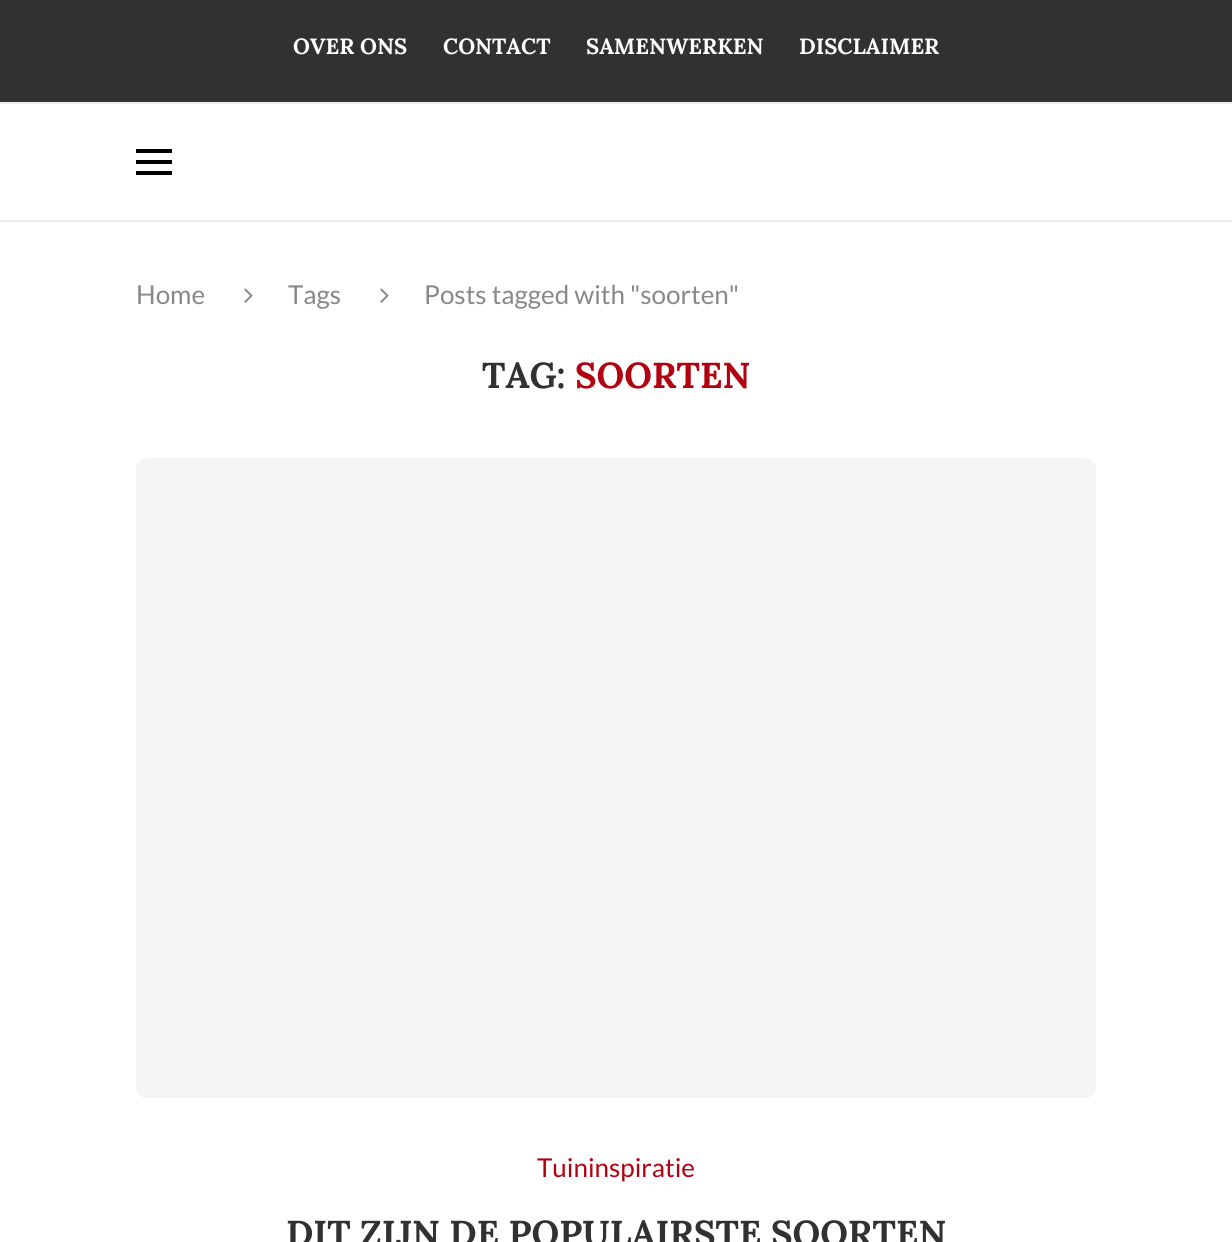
#include <cairo.h>
#include <math.h>
#include <stddef.h>


static void rgb(cairo_t *cr, int r, int g, int b)
{
	cairo_set_source_rgb(cr, r / 255.0, g / 255.0, b / 255.0);
}

static void face(cairo_t *cr, const char *family, double size, int italic, int bold)
{
	cairo_select_font_face(cr, family, italic ? CAIRO_FONT_SLANT_ITALIC : CAIRO_FONT_SLANT_NORMAL,
		bold ? CAIRO_FONT_WEIGHT_BOLD : CAIRO_FONT_WEIGHT_NORMAL);
	cairo_set_font_size(cr, size);
}

static void label(cairo_t *cr, double x, double y, const char *s)
{
	cairo_move_to(cr, x, y);
	cairo_show_text(cr, s);
}

static void rect(cairo_t *cr, double x, double y, double w, double h)
{
	cairo_rectangle(cr, x, y, w, h);
	cairo_fill(cr);
}

static void rrect(cairo_t *cr, double x, double y, double w, double h, double r)
{
	cairo_new_sub_path(cr);
	cairo_arc(cr, x + w - r, y + h - r, r, 0, M_PI / 2);
	cairo_arc(cr, x + r, y + h - r, r, M_PI / 2, M_PI);
	cairo_arc(cr, x + r, y + r, r, M_PI, 1.5 * M_PI);
	cairo_arc(cr, x + w - r, y + r, r, 1.5 * M_PI, 2 * M_PI);
	cairo_close_path(cr);
}

static void image(cairo_t *cr, const char *path, double x, double y, double w, double h)
{
	cairo_surface_t *image = cairo_image_surface_create_from_png(path);
	cairo_save(cr);
	cairo_set_source_surface(cr, image, x, y);
	cairo_rectangle(cr, x, y, w, h);
	cairo_fill(cr);
	cairo_restore(cr);
	cairo_surface_destroy(image);
}

static void draw(cairo_t *cr) {
	rgb(cr, 255, 255, 255);
	cairo_paint(cr);
	rgb(cr, 49, 49, 49);
	rect(cr, 0, 0, 1232, 102);
	face(cr, "Lora", 22, 0, 1);
	rgb(cr, 255, 255, 255);
	label(cr, 293, 54, "OVER ONS");
	label(cr, 443, 54, "CONTACT");
	label(cr, 586, 54, "SAMENWERKEN");
	label(cr, 799, 54, "DISCLAIMER");
	rgb(cr, 236, 236, 236);
	rect(cr, 0, 102, 1232, 2);
	rect(cr, 0, 220, 1232, 2);
	rgb(cr, 0, 0, 0);
	rect(cr, 136, 149, 36, 4);
	rect(cr, 136, 160, 36, 4);
	rect(cr, 136, 171, 36, 4);
	face(cr, "Lato", 26, 0, 0);
	rgb(cr, 136, 136, 136);
	label(cr, 136, 304, "Home");
	image(cr, "image0.png", 244, 288, 9, 15);
	label(cr, 288, 304, "Tags");
	image(cr, "image0.png", 380, 288, 9, 15);
	label(cr, 424, 304, "Posts tagged with \"soorten\"");
	face(cr, "Lora", 36, 0, 1);
	rgb(cr, 49, 49, 49);
	label(cr, 482, 388, "TAG:");
	rgb(cr, 179, 0, 16);
	label(cr, 575, 388, "SOORTEN");
	rgb(cr, 245, 245, 245);
	rrect(cr, 136, 458, 960, 640, 10);
	cairo_fill(cr);
	face(cr, "Lato", 26, 0, 0);
	rgb(cr, 179, 0, 16);
	label(cr, 537, 1177, "Tuininspiratie");
	face(cr, "Lora", 36, 0, 1);
	rgb(cr, 49, 49, 49);
	label(cr, 286, 1246, "DIT ZIJN DE POPULAIRSTE SOORTEN");
}

int main(void) {
	cairo_surface_t *surface = cairo_image_surface_create(CAIRO_FORMAT_RGB24, 1232, 1242);
	cairo_t *cr = cairo_create(surface);
	cairo_font_options_t *options = cairo_font_options_create();
	cairo_font_options_set_hint_metrics(options, CAIRO_HINT_METRICS_OFF);
	cairo_font_options_set_hint_style(options, CAIRO_HINT_STYLE_NONE);
	cairo_set_font_options(cr, options);
	cairo_set_miter_limit(cr, 4);
	draw(cr);
	cairo_surface_write_to_png(surface, "render.png");
	cairo_font_options_destroy(options);
	cairo_destroy(cr);
	cairo_surface_destroy(surface);
	return 0;
}
